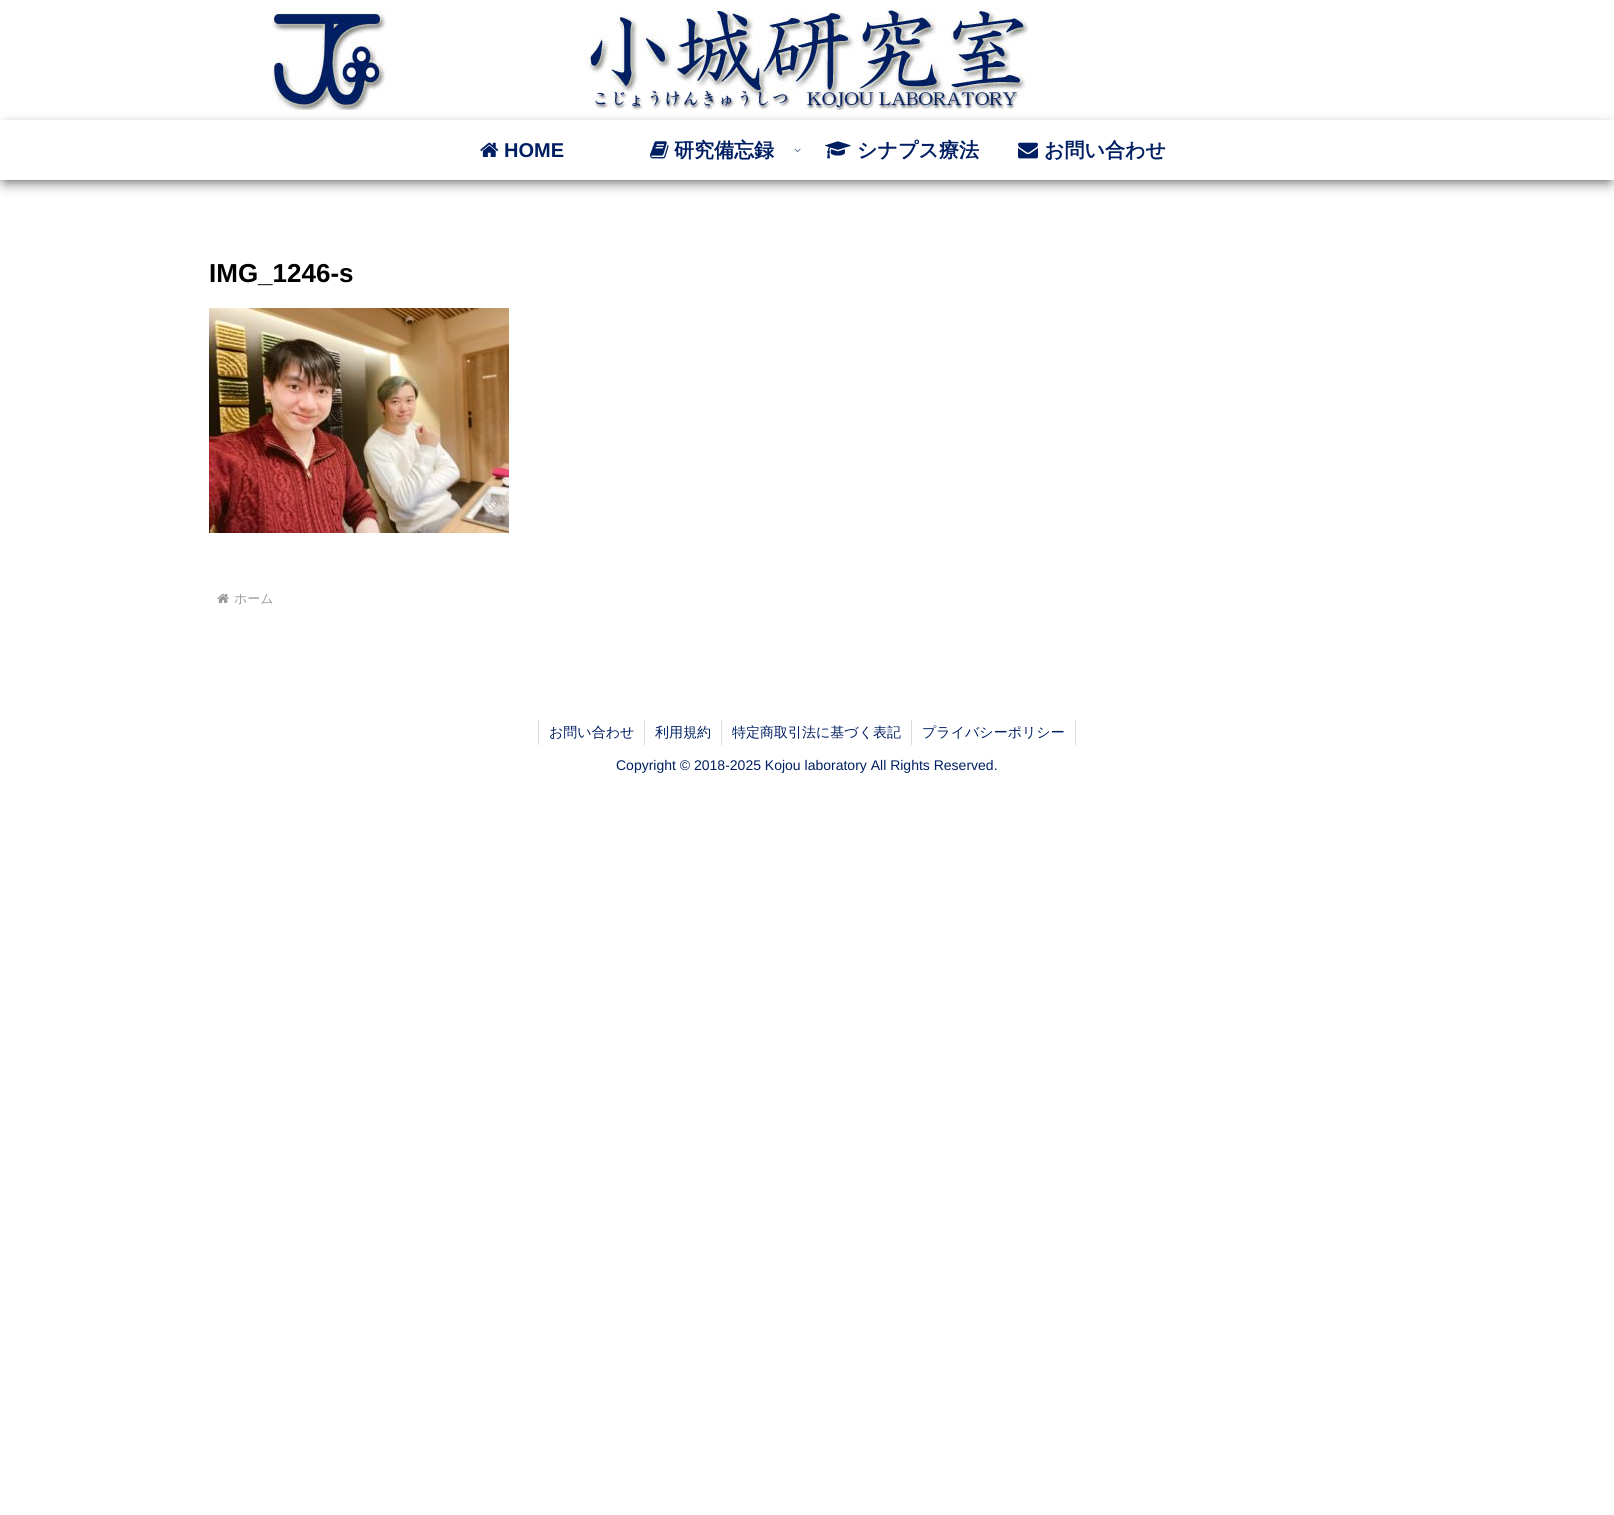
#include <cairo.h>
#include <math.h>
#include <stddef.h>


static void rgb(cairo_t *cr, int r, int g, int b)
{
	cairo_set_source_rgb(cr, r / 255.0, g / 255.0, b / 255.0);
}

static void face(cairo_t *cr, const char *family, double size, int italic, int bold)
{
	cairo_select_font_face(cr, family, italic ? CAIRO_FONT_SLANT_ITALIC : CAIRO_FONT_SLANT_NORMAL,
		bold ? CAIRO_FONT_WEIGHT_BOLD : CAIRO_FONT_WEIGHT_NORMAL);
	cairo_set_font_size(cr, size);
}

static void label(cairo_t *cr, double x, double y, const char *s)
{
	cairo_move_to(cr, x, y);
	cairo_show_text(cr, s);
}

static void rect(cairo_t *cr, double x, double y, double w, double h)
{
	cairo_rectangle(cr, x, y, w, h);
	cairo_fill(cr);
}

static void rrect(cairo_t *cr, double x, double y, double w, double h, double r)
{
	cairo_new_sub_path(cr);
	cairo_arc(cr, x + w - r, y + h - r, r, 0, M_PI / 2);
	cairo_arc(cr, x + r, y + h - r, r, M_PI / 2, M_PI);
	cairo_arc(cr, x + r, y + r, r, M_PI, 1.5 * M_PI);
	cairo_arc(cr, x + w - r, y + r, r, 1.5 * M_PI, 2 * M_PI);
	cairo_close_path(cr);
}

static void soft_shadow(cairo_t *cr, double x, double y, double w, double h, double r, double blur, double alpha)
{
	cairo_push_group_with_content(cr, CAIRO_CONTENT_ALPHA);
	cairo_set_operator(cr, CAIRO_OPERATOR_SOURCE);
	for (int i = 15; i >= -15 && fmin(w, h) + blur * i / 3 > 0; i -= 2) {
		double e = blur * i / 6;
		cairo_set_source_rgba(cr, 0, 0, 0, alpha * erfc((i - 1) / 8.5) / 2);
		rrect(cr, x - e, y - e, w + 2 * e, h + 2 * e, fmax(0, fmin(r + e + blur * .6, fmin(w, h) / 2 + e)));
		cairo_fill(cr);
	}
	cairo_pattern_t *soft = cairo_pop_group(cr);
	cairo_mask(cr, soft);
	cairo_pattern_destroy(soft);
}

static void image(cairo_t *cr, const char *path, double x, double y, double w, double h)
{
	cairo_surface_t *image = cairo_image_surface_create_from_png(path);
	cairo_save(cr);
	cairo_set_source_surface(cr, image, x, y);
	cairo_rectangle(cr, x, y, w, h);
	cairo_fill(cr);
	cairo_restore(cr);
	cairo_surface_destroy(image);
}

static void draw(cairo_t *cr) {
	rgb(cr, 255, 255, 255);
	cairo_paint(cr);
	cairo_save(cr);
	cairo_set_fill_rule(cr, CAIRO_FILL_RULE_EVEN_ODD);
	cairo_new_path(cr);
	cairo_move_to(cr, 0, 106);
	cairo_line_to(cr, 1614, 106);
	cairo_line_to(cr, 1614, 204);
	cairo_line_to(cr, 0, 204);
	cairo_close_path(cr);
	cairo_move_to(cr, 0, 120);
	cairo_line_to(cr, 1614, 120);
	cairo_line_to(cr, 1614, 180);
	cairo_line_to(cr, 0, 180);
	cairo_close_path(cr);
	cairo_clip(cr);
	rgb(cr, 0, 0, 0);
	soft_shadow(cr, 5, 130, 1604, 50, 0, 7.5, 0.8);
	cairo_restore(cr);
	image(cr, "image0.png", 272, 10, 757, 100);
	image(cr, "image1.png", 480, 142, 19, 15);
	face(cr, "Liberation Sans", 20, 0, 1);
	rgb(cr, 0, 30, 98);
	label(cr, 504, 157, "HOME");
	image(cr, "image2.png", 650, 141, 19, 18);
	face(cr, "WenQuanYi Zen Hei", 20, 0, 1);
	label(cr, 674, 157, "研究備忘録");
	image(cr, "image3.png", 794, 148, 7, 5);
	image(cr, "image4.png", 825, 141, 26, 18);
	label(cr, 857, 157, "シナプス療法");
	image(cr, "image5.png", 1018, 142, 20, 17);
	label(cr, 1044, 157, "お問い合わせ");
	face(cr, "Liberation Sans", 26, 0, 1);
	rgb(cr, 0, 0, 0);
	label(cr, 209, 282, "IMG_1246-s");
	image(cr, "image6.png", 209, 308, 300, 225);
	image(cr, "image7.png", 217, 593, 12, 10);
	face(cr, "WenQuanYi Zen Hei Medium", 13, 0, 0);
	rgb(cr, 153, 153, 153);
	label(cr, 234, 603, "ホーム");
	rgb(cr, 221, 221, 221);
	rect(cr, 538, 720, 1, 25);
	face(cr, "WenQuanYi Zen Hei Medium", 14, 0, 0);
	rgb(cr, 0, 30, 98);
	label(cr, 549, 737, "お問い合わせ");
	rgb(cr, 221, 221, 221);
	rect(cr, 644, 720, 1, 25);
	rgb(cr, 0, 30, 98);
	label(cr, 655, 737, "利用規約");
	rgb(cr, 221, 221, 221);
	rect(cr, 721, 720, 1, 25);
	rgb(cr, 0, 30, 98);
	label(cr, 732, 737, "特定商取引法に基づく表記");
	rgb(cr, 221, 221, 221);
	rect(cr, 1075, 720, 1, 25);
	rect(cr, 911, 720, 1, 25);
	rgb(cr, 0, 30, 98);
	label(cr, 922, 737, "プライバシーポリシー");
	face(cr, "Liberation Sans", 14, 0, 0);
	label(cr, 616, 770, "Copyright © 2018-2025 Kojou laboratory All Rights Reserved.");
}

int main(void) {
	cairo_surface_t *surface = cairo_image_surface_create(CAIRO_FORMAT_RGB24, 1614, 1515);
	cairo_t *cr = cairo_create(surface);
	cairo_font_options_t *options = cairo_font_options_create();
	cairo_font_options_set_hint_metrics(options, CAIRO_HINT_METRICS_OFF);
	cairo_font_options_set_hint_style(options, CAIRO_HINT_STYLE_NONE);
	cairo_set_font_options(cr, options);
	cairo_set_miter_limit(cr, 4);
	draw(cr);
	cairo_surface_write_to_png(surface, "render.png");
	cairo_font_options_destroy(options);
	cairo_destroy(cr);
	cairo_surface_destroy(surface);
	return 0;
}
